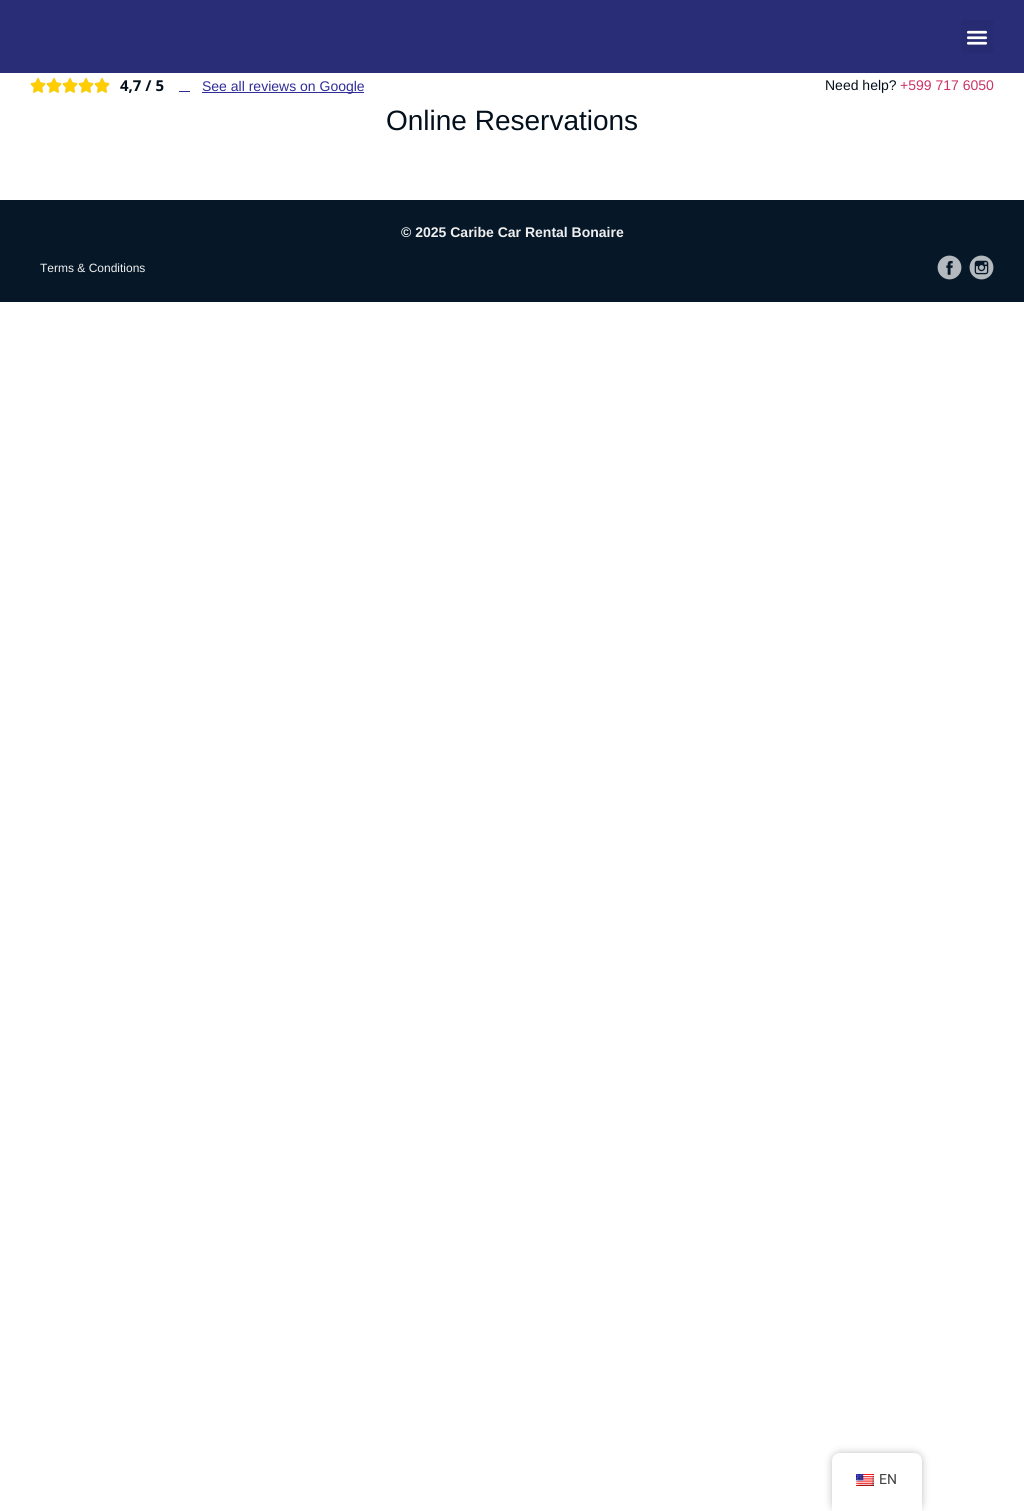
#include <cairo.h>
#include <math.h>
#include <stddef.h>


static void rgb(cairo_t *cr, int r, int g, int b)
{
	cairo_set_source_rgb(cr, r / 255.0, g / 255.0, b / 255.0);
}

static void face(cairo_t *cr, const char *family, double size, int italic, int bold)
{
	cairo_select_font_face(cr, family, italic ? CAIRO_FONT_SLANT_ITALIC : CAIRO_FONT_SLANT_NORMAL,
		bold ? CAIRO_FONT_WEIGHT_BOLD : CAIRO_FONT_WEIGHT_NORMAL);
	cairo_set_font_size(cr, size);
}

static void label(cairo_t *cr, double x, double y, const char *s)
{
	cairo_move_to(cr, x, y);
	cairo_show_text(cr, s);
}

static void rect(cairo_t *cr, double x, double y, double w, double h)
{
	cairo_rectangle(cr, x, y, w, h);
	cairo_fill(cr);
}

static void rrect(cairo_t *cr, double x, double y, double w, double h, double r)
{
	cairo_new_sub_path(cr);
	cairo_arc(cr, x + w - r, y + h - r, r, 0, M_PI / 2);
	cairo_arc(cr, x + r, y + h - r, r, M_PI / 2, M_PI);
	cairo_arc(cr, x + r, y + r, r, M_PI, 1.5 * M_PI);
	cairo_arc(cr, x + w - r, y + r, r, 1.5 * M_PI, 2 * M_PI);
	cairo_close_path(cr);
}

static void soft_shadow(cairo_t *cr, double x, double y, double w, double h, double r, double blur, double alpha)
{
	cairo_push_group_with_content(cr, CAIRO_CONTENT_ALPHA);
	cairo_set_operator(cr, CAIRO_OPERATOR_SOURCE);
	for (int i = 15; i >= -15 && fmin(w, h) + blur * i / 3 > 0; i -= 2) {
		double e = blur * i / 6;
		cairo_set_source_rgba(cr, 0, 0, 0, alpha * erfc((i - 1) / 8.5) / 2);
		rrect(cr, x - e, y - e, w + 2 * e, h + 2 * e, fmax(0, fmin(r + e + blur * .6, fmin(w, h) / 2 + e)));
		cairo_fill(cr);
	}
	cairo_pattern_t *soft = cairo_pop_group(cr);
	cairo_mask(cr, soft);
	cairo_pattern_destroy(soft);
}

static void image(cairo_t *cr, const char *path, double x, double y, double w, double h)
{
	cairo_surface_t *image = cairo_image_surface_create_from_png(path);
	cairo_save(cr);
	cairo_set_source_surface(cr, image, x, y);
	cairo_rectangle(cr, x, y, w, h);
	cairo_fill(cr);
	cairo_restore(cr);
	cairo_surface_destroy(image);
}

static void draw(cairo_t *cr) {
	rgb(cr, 255, 255, 255);
	cairo_paint(cr);
	rgb(cr, 41, 45, 120);
	rect(cr, 0, 0, 1024, 73);
	rgb(cr, 39, 43, 114);
	rrect(cr, 961, 20, 33, 33, 3);
	cairo_fill(cr);
	image(cr, "image0.png", 966, 30, 22, 15);
	image(cr, "image1.png", 30, 78, 16, 15);
	image(cr, "image2.png", 30, 78, 16, 15);
	image(cr, "image1.png", 46, 78, 16, 15);
	image(cr, "image2.png", 46, 78, 16, 15);
	image(cr, "image1.png", 62, 78, 16, 15);
	image(cr, "image2.png", 62, 78, 16, 15);
	image(cr, "image1.png", 78, 78, 16, 15);
	image(cr, "image2.png", 78, 78, 16, 15);
	image(cr, "image1.png", 94, 78, 16, 15);
	image(cr, "image2.png", 94, 78, 16, 15);
	face(cr, "Open Sans", 15, 0, 1);
	rgb(cr, 3, 16, 27);
	label(cr, 120, 91, "4,7 / 5");
	rgb(cr, 48, 45, 152);
	rect(cr, 179, 91, 11, 1);
	rect(cr, 202, 92, 162, 1);
	face(cr, "Liberation Sans", 14, 0, 0);
	label(cr, 202, 91, "See all reviews on Google");
	rgb(cr, 3, 16, 27);
	label(cr, 825, 90, "Need help?");
	rgb(cr, 204, 51, 102);
	label(cr, 900, 90, "+599 717 6050");
	face(cr, "Liberation Sans", 28, 0, 0);
	rgb(cr, 3, 16, 27);
	label(cr, 386, 130, "Online Reservations");
	rgb(cr, 6, 24, 40);
	rect(cr, 0, 200, 1024, 102);
	face(cr, "Liberation Sans", 14, 0, 1);
	rgb(cr, 239, 239, 239);
	label(cr, 401, 237, "© 2025 Caribe Car Rental Bonaire");
	face(cr, "Liberation Sans", 12, 0, 0);
	label(cr, 40, 272, "Terms & Conditions");
	image(cr, "image3.png", 937, 255, 25, 25);
	image(cr, "image4.png", 969, 255, 25, 25);
	rgb(cr, 0, 0, 0);
	soft_shadow(cr, 832, 1453, 90, 58, 8, 4, 0.25);
	rgb(cr, 255, 255, 255);
	cairo_new_path(cr);
	cairo_move_to(cr, 840, 1453);
	cairo_line_to(cr, 914, 1453);
	cairo_curve_to(cr, 918.5, 1453, 922, 1456.5, 922, 1461);
	cairo_line_to(cr, 922, 1511);
	cairo_line_to(cr, 832, 1511);
	cairo_line_to(cr, 832, 1461);
	cairo_curve_to(cr, 832, 1456.5, 835.5, 1453, 840, 1453);
	cairo_close_path(cr);
	cairo_fill(cr);
	image(cr, "image5.png", 856, 1474, 18, 12);
	face(cr, "Roboto", 14, 0, 0);
	rgb(cr, 64, 64, 64);
	label(cr, 879, 1484, "EN");
}

int main(void) {
	cairo_surface_t *surface = cairo_image_surface_create(CAIRO_FORMAT_RGB24, 1024, 1511);
	cairo_t *cr = cairo_create(surface);
	cairo_font_options_t *options = cairo_font_options_create();
	cairo_font_options_set_hint_metrics(options, CAIRO_HINT_METRICS_OFF);
	cairo_font_options_set_hint_style(options, CAIRO_HINT_STYLE_NONE);
	cairo_set_font_options(cr, options);
	cairo_set_miter_limit(cr, 4);
	draw(cr);
	cairo_surface_write_to_png(surface, "render.png");
	cairo_font_options_destroy(options);
	cairo_destroy(cr);
	cairo_surface_destroy(surface);
	return 0;
}
